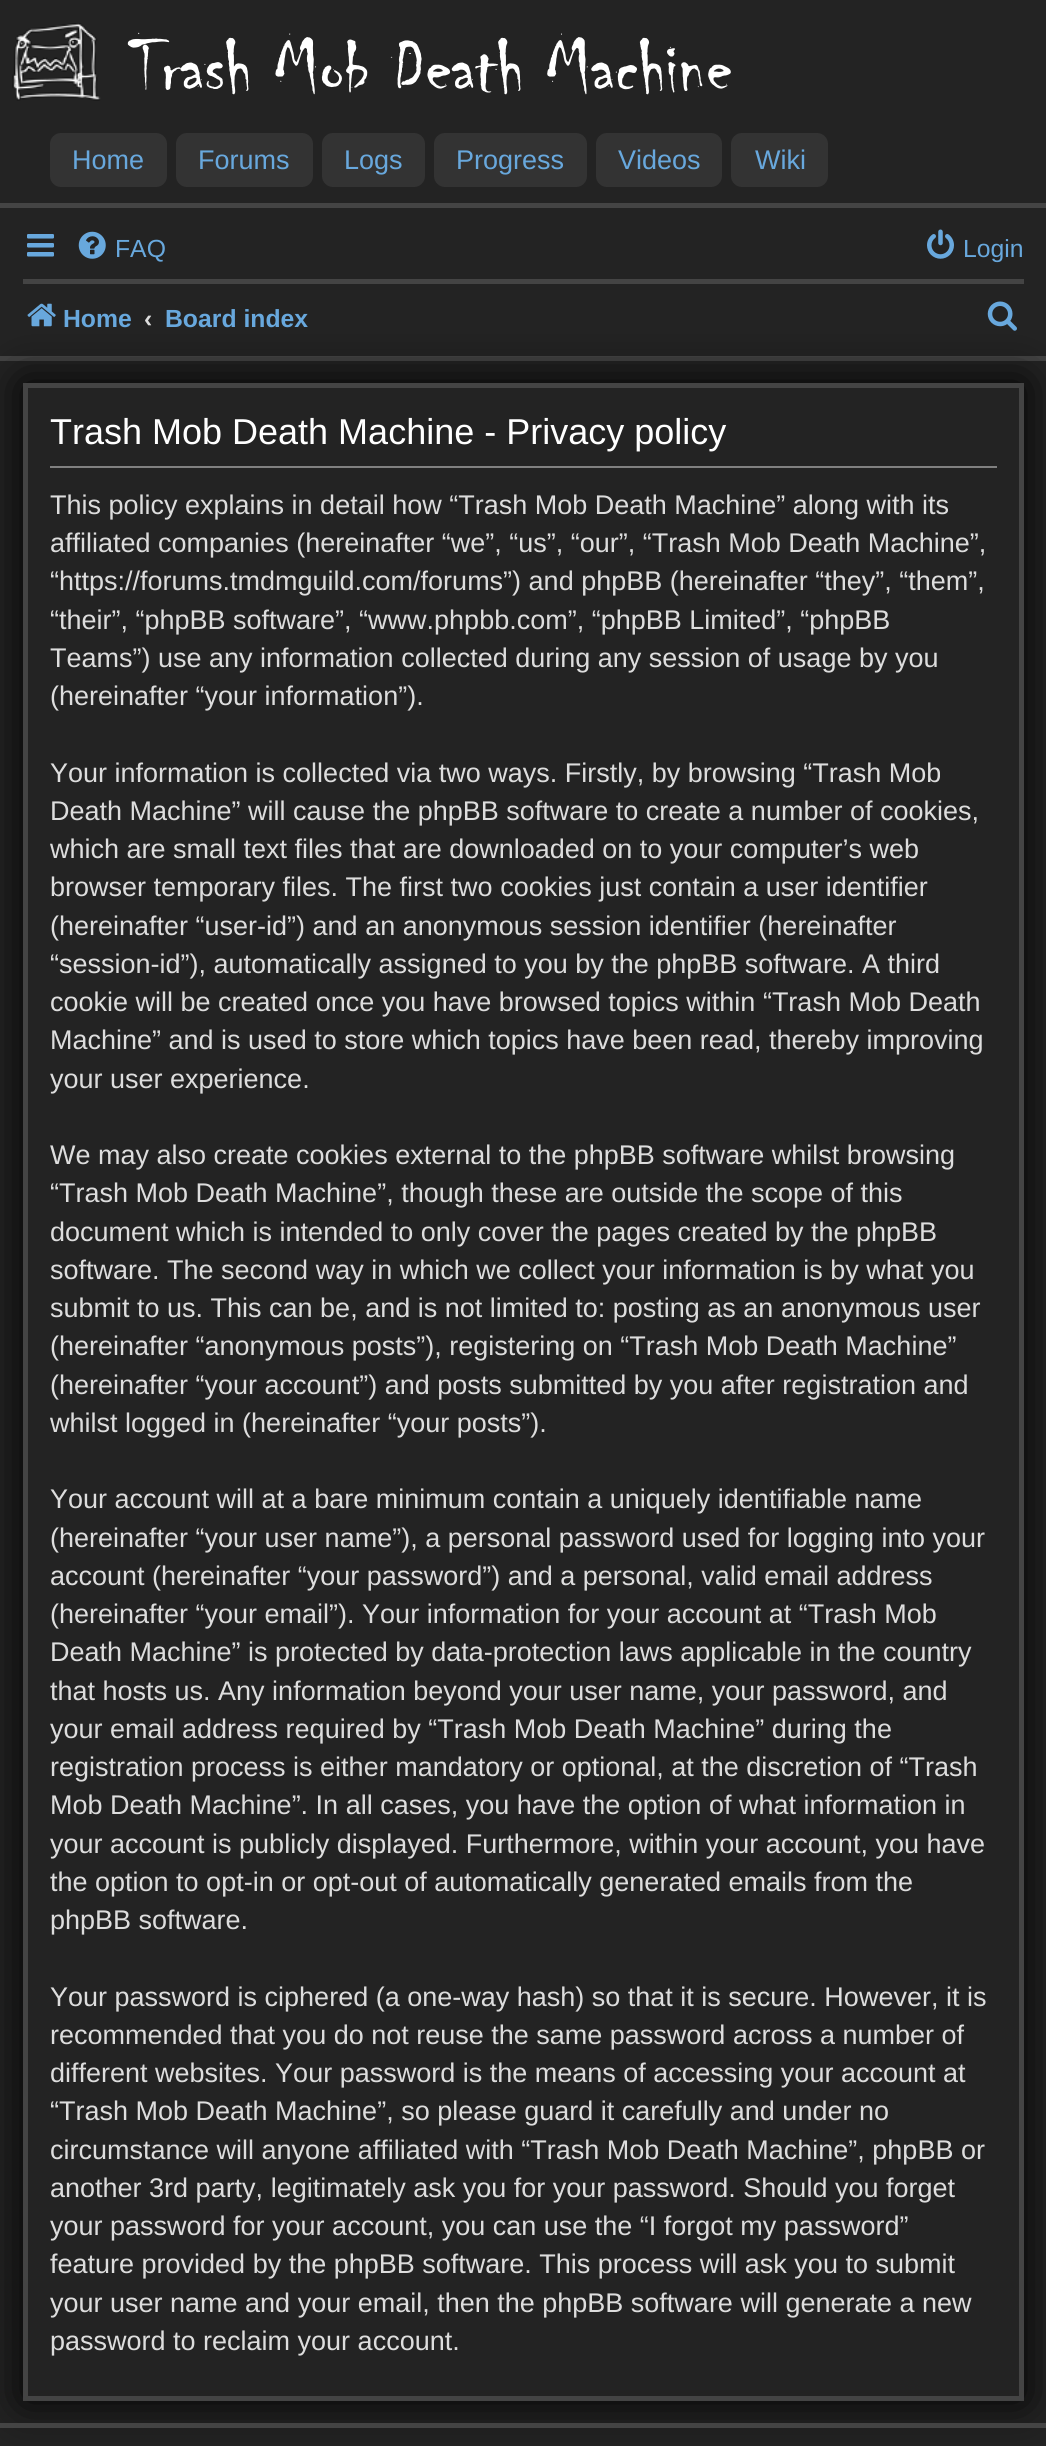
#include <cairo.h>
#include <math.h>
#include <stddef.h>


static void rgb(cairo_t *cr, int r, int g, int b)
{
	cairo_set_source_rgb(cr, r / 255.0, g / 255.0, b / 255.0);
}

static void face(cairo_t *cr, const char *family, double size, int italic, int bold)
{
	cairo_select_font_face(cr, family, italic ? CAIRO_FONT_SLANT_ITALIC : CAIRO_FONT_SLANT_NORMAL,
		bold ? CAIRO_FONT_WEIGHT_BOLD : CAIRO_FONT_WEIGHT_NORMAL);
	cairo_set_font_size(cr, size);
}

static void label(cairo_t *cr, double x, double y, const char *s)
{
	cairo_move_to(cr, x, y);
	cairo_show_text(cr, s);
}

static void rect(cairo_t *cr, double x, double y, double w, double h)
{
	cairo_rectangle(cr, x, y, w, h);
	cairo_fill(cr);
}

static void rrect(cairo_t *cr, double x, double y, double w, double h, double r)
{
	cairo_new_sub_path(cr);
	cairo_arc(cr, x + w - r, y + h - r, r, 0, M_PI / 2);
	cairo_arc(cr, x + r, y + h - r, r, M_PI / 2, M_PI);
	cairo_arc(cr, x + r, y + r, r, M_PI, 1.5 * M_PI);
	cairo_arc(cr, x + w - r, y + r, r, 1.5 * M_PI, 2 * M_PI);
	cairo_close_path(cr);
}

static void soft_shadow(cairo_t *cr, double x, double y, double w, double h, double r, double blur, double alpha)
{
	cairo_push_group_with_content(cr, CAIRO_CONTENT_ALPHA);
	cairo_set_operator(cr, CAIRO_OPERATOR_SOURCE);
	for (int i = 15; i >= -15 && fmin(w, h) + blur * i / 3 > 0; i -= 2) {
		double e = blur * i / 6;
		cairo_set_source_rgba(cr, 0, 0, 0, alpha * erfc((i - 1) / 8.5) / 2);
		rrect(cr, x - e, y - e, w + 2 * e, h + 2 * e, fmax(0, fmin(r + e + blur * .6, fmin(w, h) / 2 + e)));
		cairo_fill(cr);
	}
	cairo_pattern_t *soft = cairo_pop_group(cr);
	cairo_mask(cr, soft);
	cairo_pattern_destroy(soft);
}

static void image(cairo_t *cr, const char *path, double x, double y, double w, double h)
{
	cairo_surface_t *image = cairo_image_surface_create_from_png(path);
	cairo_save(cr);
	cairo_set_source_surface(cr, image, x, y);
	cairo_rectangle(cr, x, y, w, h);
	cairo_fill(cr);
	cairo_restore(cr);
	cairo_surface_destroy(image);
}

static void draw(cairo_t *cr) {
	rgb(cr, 35, 35, 35);
	cairo_paint(cr);
	rgb(cr, 68, 68, 68);
	rect(cr, 0, 203, 1046, 5);
	image(cr, "image0.png", 12, 23, 89, 78);
	face(cr, "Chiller", 78.75, 0, 0);
	rgb(cr, 255, 255, 255);
	label(cr, 130, 90, "Trash Mob Death Machine");
	rgb(cr, 51, 51, 51);
	rrect(cr, 50, 133, 117, 54, 11);
	cairo_fill(cr);
	face(cr, "Liberation Sans", 27, 0, 0);
	rgb(cr, 104, 168, 221);
	label(cr, 72, 169, "Home");
	rgb(cr, 51, 51, 51);
	rrect(cr, 176, 133, 137, 54, 11);
	cairo_fill(cr);
	rgb(cr, 104, 168, 221);
	label(cr, 198, 169, "Forums");
	rgb(cr, 51, 51, 51);
	rrect(cr, 322, 133, 103, 54, 11);
	cairo_fill(cr);
	rgb(cr, 104, 168, 221);
	label(cr, 344, 169, "Logs");
	rgb(cr, 51, 51, 51);
	rrect(cr, 434, 133, 153, 54, 11);
	cairo_fill(cr);
	rgb(cr, 104, 168, 221);
	label(cr, 456, 169, "Progress");
	rgb(cr, 51, 51, 51);
	rrect(cr, 596, 133, 126, 54, 11);
	cairo_fill(cr);
	rgb(cr, 104, 168, 221);
	label(cr, 618, 169, "Videos");
	rgb(cr, 51, 51, 51);
	rrect(cr, 731, 133, 97, 54, 11);
	cairo_fill(cr);
	rgb(cr, 104, 168, 221);
	label(cr, 755, 169, "Wiki");
	rgb(cr, 68, 68, 68);
	rect(cr, 0, 356, 1046, 5);
	image(cr, "image1.png", 27, 234, 27, 23);
	image(cr, "image2.png", 78, 231, 28, 28);
	face(cr, "Liberation Sans", 24.75, 0, 0);
	rgb(cr, 104, 168, 221);
	label(cr, 115, 257, "FAQ");
	image(cr, "image3.png", 927, 229, 27, 30);
	label(cr, 963, 257, "Login");
	rgb(cr, 68, 68, 68);
	rect(cr, 23, 279, 1001, 5);
	rgb(cr, 0, 0, 0);
	soft_shadow(cr, 23, 383, 1001, 2018, 0, 22.5, 1);
	image(cr, "image4.png", 27, 303, 29, 24);
	face(cr, "Liberation Sans", 24.75, 0, 1);
	rgb(cr, 104, 168, 221);
	label(cr, 63, 327, "Home");
	rgb(cr, 221, 221, 221);
	label(cr, 144, 327, "‹");
	rgb(cr, 104, 168, 221);
	label(cr, 165, 327, "Board index");
	image(cr, "image5.png", 987, 301, 30, 30);
	rgb(cr, 35, 35, 35);
	cairo_rectangle(cr, 25.5, 385.5, 996, 2013);
	cairo_fill_preserve(cr);
	rgb(cr, 68, 68, 68);
	cairo_set_line_width(cr, 5);
	cairo_stroke(cr);
	rgb(cr, 128, 128, 128);
	rect(cr, 50, 466, 947, 2);
	face(cr, "Liberation Sans", 36, 0, 0);
	rgb(cr, 255, 255, 255);
	label(cr, 50, 444, "Trash Mob Death Machine - Privacy policy");
	face(cr, "Liberation Sans", 27, 0, 0);
	rgb(cr, 221, 221, 221);
	label(cr, 50, 514, "This policy explains in detail how “Trash Mob Death Machine” along with its");
	label(cr, 50, 552, "affiliated companies (hereinafter “we”, “us”, “our”, “Trash Mob Death Machine”,");
	label(cr, 50, 590, "“https://forums.tmdmguild.com/forums”) and phpBB (hereinafter “they”, “them”,");
	label(cr, 50, 629, "“their”, “phpBB software”, “www.phpbb.com”, “phpBB Limited”, “phpBB");
	label(cr, 50, 667, "Teams”) use any information collected during any session of usage by you");
	label(cr, 50, 705, "(hereinafter “your information”).");
	label(cr, 50, 782, "Your information is collected via two ways. Firstly, by browsing “Trash Mob");
	label(cr, 50, 820, "Death Machine” will cause the phpBB software to create a number of cookies,");
	cairo_save(cr);
	cairo_rectangle(cr, 50, 398, 947, 1987);
	cairo_clip(cr);
	label(cr, 50, 858, "which are small text files that are downloaded on to your computer’s web");
	cairo_restore(cr);
	label(cr, 50, 896, "browser temporary files. The first two cookies just contain a user identifier");
	label(cr, 50, 935, "(hereinafter “user-id”) and an anonymous session identifier (hereinafter");
	label(cr, 50, 973, "“session-id”), automatically assigned to you by the phpBB software. A third");
	label(cr, 50, 1011, "cookie will be created once you have browsed topics within “Trash Mob Death");
	label(cr, 50, 1049, "Machine” and is used to store which topics have been read, thereby improving");
	label(cr, 50, 1088, "your user experience.");
	label(cr, 50, 1164, "We may also create cookies external to the phpBB software whilst browsing");
	label(cr, 50, 1202, "“Trash Mob Death Machine”, though these are outside the scope of this");
	label(cr, 50, 1241, "document which is intended to only cover the pages created by the phpBB");
	label(cr, 50, 1279, "software. The second way in which we collect your information is by what you");
	label(cr, 50, 1317, "submit to us. This can be, and is not limited to: posting as an anonymous user");
	label(cr, 50, 1355, "(hereinafter “anonymous posts”), registering on “Trash Mob Death Machine”");
	label(cr, 50, 1394, "(hereinafter “your account”) and posts submitted by you after registration and");
	cairo_save(cr);
	cairo_rectangle(cr, 50, 398, 947, 1987);
	cairo_clip(cr);
	label(cr, 50, 1432, "whilst logged in (hereinafter “your posts”).");
	cairo_restore(cr);
	label(cr, 50, 1508, "Your account will at a bare minimum contain a uniquely identifiable name");
	label(cr, 50, 1547, "(hereinafter “your user name”), a personal password used for logging into your");
	label(cr, 50, 1585, "account (hereinafter “your password”) and a personal, valid email address");
	label(cr, 50, 1623, "(hereinafter “your email”). Your information for your account at “Trash Mob");
	label(cr, 50, 1661, "Death Machine” is protected by data-protection laws applicable in the country");
	label(cr, 50, 1700, "that hosts us. Any information beyond your user name, your password, and");
	label(cr, 50, 1738, "your email address required by “Trash Mob Death Machine” during the");
	label(cr, 50, 1776, "registration process is either mandatory or optional, at the discretion of “Trash");
	label(cr, 50, 1814, "Mob Death Machine”. In all cases, you have the option of what information in");
	label(cr, 50, 1853, "your account is publicly displayed. Furthermore, within your account, you have");
	label(cr, 50, 1891, "the option to opt-in or opt-out of automatically generated emails from the");
	label(cr, 50, 1929, "phpBB software.");
	label(cr, 50, 2006, "Your password is ciphered (a one-way hash) so that it is secure. However, it is");
	label(cr, 50, 2044, "recommended that you do not reuse the same password across a number of");
	label(cr, 50, 2082, "different websites. Your password is the means of accessing your account at");
	label(cr, 50, 2120, "“Trash Mob Death Machine”, so please guard it carefully and under no");
	label(cr, 50, 2159, "circumstance will anyone affiliated with “Trash Mob Death Machine”, phpBB or");
	label(cr, 50, 2197, "another 3rd party, legitimately ask you for your password. Should you forget");
	label(cr, 50, 2235, "your password for your account, you can use the “I forgot my password”");
	label(cr, 50, 2273, "feature provided by the phpBB software. This process will ask you to submit");
	label(cr, 50, 2312, "your user name and your email, then the phpBB software will generate a new");
	label(cr, 50, 2350, "password to reclaim your account.");
	rgb(cr, 68, 68, 68);
	rect(cr, 0, 2423, 1046, 5);
}

int main(void) {
	cairo_surface_t *surface = cairo_image_surface_create(CAIRO_FORMAT_RGB24, 1046, 2446);
	cairo_t *cr = cairo_create(surface);
	cairo_font_options_t *options = cairo_font_options_create();
	cairo_font_options_set_hint_metrics(options, CAIRO_HINT_METRICS_OFF);
	cairo_font_options_set_hint_style(options, CAIRO_HINT_STYLE_NONE);
	cairo_set_font_options(cr, options);
	cairo_set_miter_limit(cr, 4);
	draw(cr);
	cairo_surface_write_to_png(surface, "render.png");
	cairo_font_options_destroy(options);
	cairo_destroy(cr);
	cairo_surface_destroy(surface);
	return 0;
}
